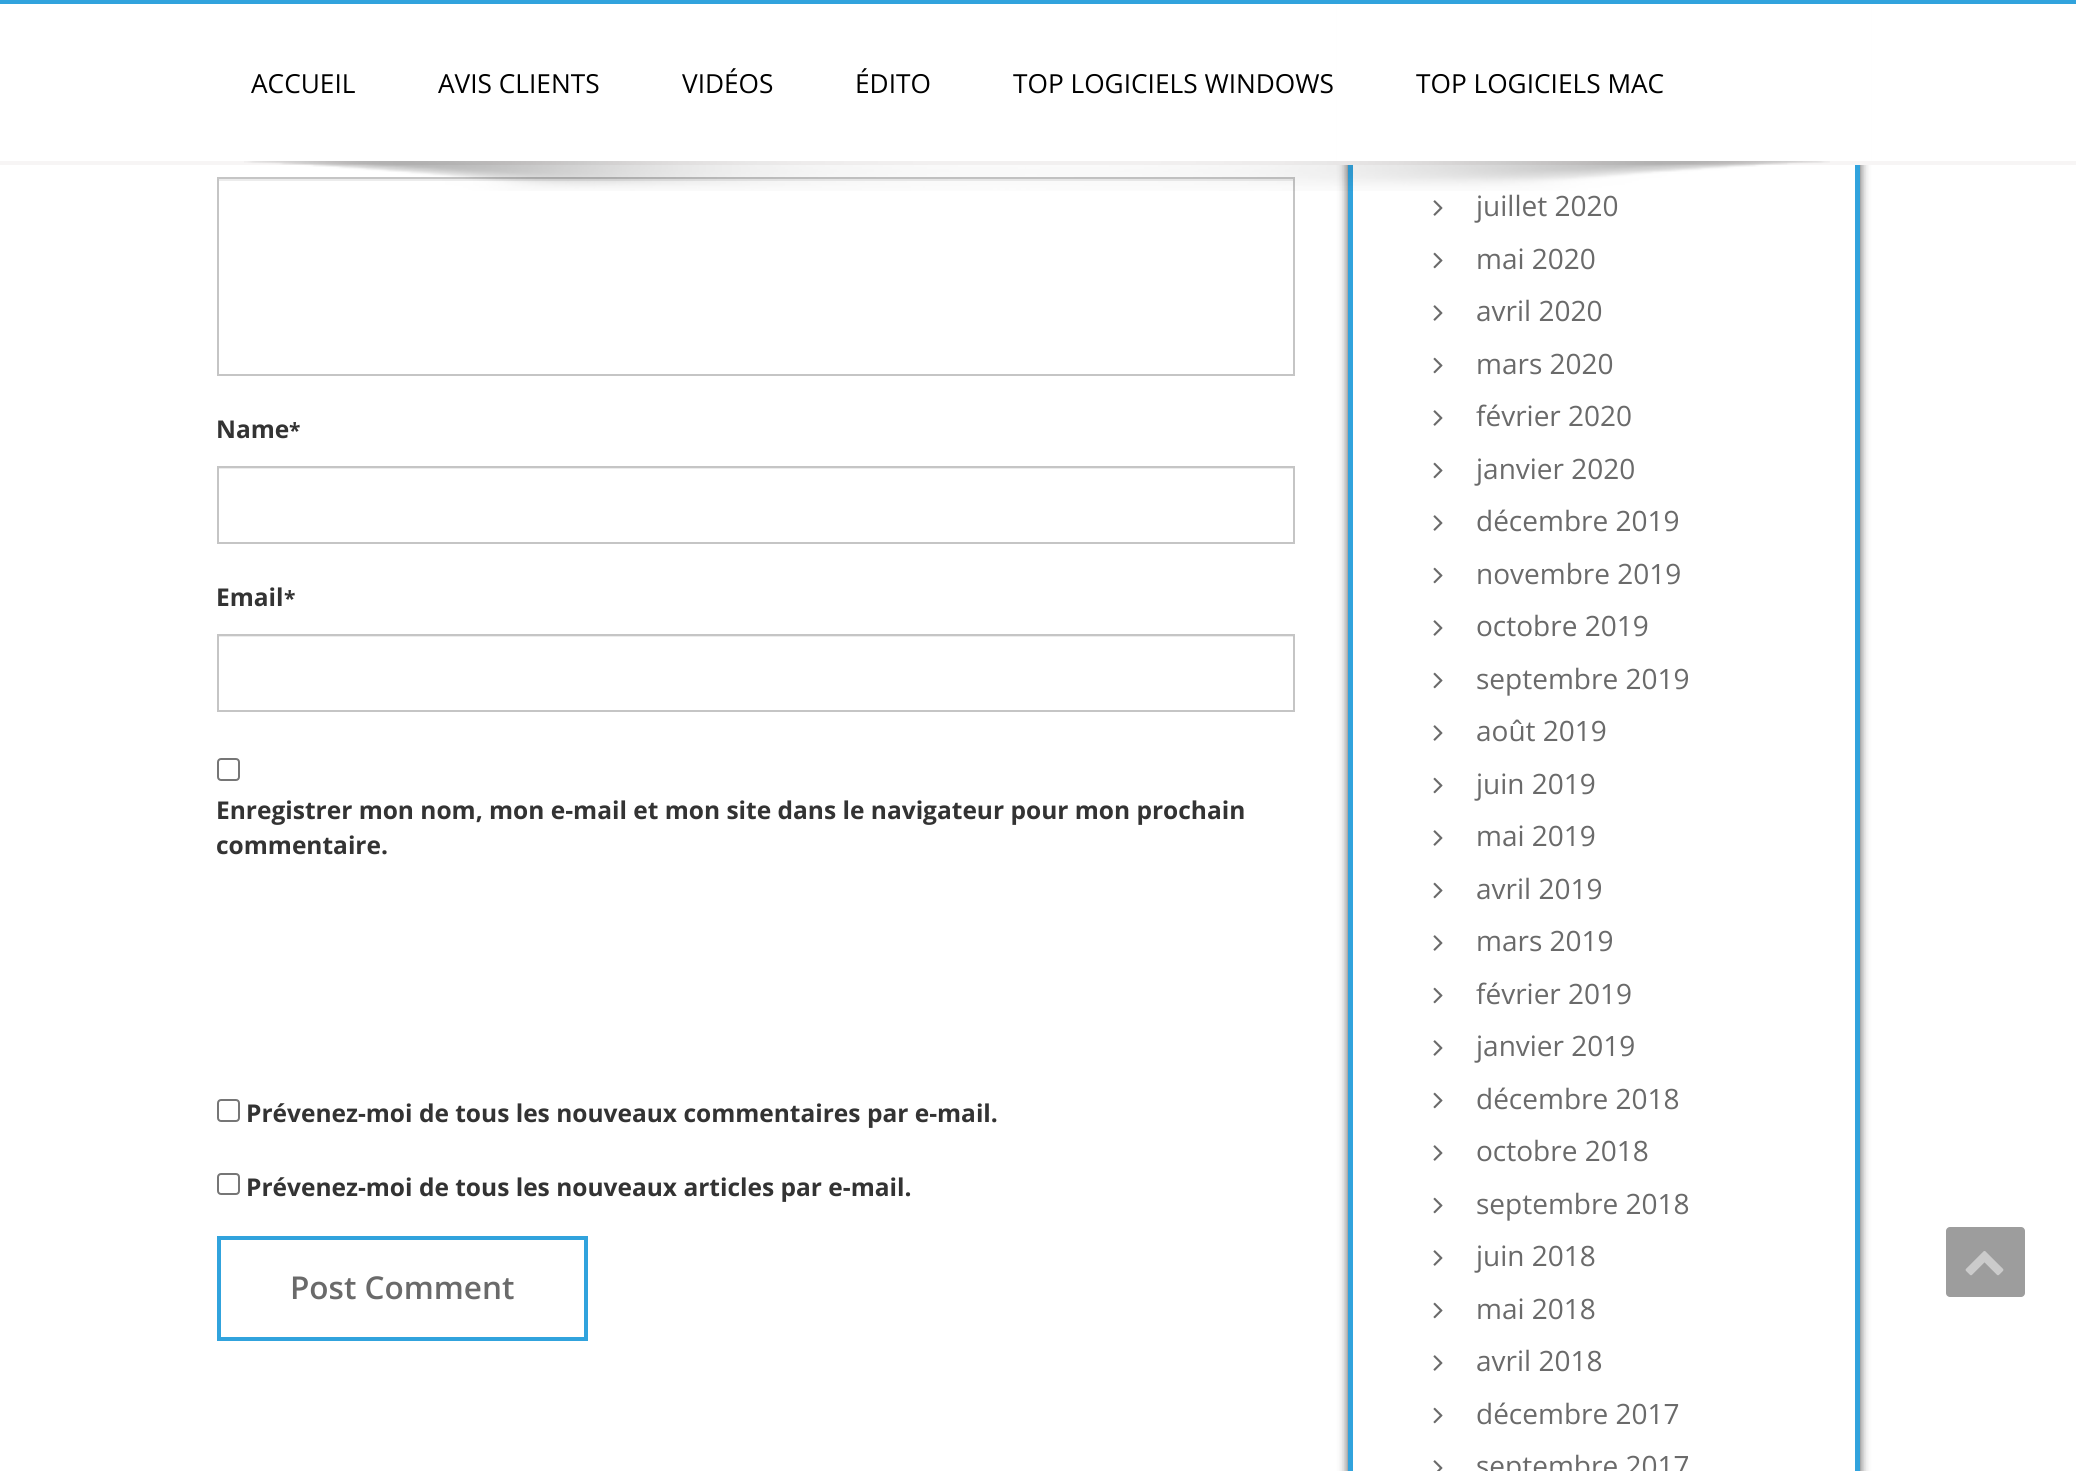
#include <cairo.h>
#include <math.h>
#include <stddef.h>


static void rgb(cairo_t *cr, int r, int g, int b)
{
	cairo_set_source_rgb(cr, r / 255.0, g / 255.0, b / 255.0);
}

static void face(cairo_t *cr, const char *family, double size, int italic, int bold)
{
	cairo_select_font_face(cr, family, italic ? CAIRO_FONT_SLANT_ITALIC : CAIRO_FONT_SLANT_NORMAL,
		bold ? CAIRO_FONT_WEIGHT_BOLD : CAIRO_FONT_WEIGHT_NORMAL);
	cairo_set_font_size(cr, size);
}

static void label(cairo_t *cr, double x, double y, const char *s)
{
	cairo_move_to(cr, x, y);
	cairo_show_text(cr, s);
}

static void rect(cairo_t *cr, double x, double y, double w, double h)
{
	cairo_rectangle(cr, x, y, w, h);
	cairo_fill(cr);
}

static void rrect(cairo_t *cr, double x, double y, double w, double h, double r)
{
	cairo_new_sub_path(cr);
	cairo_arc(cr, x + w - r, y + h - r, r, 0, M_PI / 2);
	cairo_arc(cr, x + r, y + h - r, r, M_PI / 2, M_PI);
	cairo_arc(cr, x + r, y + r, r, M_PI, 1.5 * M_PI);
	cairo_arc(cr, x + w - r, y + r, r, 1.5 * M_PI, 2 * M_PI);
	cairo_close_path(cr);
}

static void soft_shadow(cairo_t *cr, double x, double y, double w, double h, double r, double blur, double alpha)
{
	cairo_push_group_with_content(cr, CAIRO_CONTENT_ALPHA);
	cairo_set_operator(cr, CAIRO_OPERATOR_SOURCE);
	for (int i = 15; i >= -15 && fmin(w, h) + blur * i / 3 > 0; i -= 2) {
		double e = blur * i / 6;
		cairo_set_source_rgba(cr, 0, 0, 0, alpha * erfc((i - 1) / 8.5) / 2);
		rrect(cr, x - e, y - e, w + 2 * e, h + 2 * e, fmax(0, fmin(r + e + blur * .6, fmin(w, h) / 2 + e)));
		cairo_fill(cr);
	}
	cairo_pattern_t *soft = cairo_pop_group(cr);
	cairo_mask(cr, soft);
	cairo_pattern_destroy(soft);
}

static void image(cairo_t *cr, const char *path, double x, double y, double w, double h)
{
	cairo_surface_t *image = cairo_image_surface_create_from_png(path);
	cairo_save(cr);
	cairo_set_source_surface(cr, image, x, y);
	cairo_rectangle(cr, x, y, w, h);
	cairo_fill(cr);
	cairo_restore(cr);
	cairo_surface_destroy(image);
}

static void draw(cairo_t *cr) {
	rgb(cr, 255, 255, 255);
	cairo_paint(cr);
	cairo_save(cr);
	cairo_set_fill_rule(cr, CAIRO_FILL_RULE_EVEN_ODD);
	cairo_new_path(cr);
	cairo_move_to(cr, 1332, 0);
	cairo_line_to(cr, 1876, 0);
	cairo_line_to(cr, 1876, 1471);
	cairo_line_to(cr, 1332, 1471);
	cairo_close_path(cr);
	cairo_move_to(cr, 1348, -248);
	cairo_line_to(cr, 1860, -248);
	cairo_line_to(cr, 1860, 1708);
	cairo_line_to(cr, 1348, 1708);
	cairo_close_path(cr);
	cairo_clip(cr);
	rgb(cr, 0, 0, 0);
	soft_shadow(cr, 1348, -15, 512, 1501, 0, 5, 0.7);
	cairo_restore(cr);
	rgb(cr, 255, 255, 255);
	rect(cr, 1337, 4, 534, 157);
	rgb(cr, 49, 163, 221);
	rect(cr, 0, 0, 2076, 4);
	rgb(cr, 247, 245, 245);
	rect(cr, 0, 161, 2076, 4);
	face(cr, "Open Sans", 26.25, 0, 0);
	rgb(cr, 0, 0, 0);
	label(cr, 251, 93, "ACCUEIL");
	label(cr, 438, 93, "AVIS CLIENTS");
	label(cr, 682, 93, "VIDÉOS");
	label(cr, 855, 93, "ÉDITO");
	label(cr, 1013, 93, "TOP LOGICIELS WINDOWS");
	label(cr, 1416, 93, "TOP LOGICIELS MAC");
	rgb(cr, 236, 236, 236);
	rect(cr, 219, 179, 1074, 2);
	cairo_rectangle(cr, 218, 178, 1076, 197);
	rgb(cr, 197, 197, 197);
	cairo_stroke(cr);
	rgb(cr, 49, 163, 221);
	rect(cr, 1348, 165, 5, 1306);
	image(cr, "image0.png", 244, 161, 1586, 30);
	face(cr, "Open Sans", 24.5, 0, 1);
	rgb(cr, 51, 51, 51);
	label(cr, 216, 438, "Name");
	face(cr, "Open Sans", 21, 0, 1);
	label(cr, 289, 438, "*");
	rgb(cr, 236, 236, 236);
	rect(cr, 219, 468, 1074, 1);
	cairo_rectangle(cr, 218, 467, 1076, 76);
	rgb(cr, 197, 197, 197);
	cairo_stroke(cr);
	face(cr, "Open Sans", 24.5, 0, 1);
	rgb(cr, 51, 51, 51);
	label(cr, 216, 606, "Email");
	face(cr, "Open Sans", 21, 0, 1);
	label(cr, 284, 606, "*");
	rgb(cr, 236, 236, 236);
	rect(cr, 219, 636, 1074, 1);
	cairo_rectangle(cr, 218, 635, 1076, 76);
	rgb(cr, 197, 197, 197);
	cairo_stroke(cr);
	rrect(cr, 218, 759, 21, 21, 3);
	rgb(cr, 118, 118, 118);
	cairo_stroke(cr);
	face(cr, "Open Sans", 24.5, 0, 1);
	rgb(cr, 51, 51, 51);
	label(cr, 216, 819, "Enregistrer mon nom, mon e-mail et mon site dans le navigateur pour mon prochain");
	label(cr, 216, 854, "commentaire.");
	rrect(cr, 218, 1100, 21, 21, 3);
	rgb(cr, 118, 118, 118);
	cairo_stroke(cr);
	rgb(cr, 51, 51, 51);
	label(cr, 246, 1122, "Prévenez-moi de tous les nouveaux commentaires par e-mail.");
	rrect(cr, 218, 1174, 21, 20, 3);
	rgb(cr, 118, 118, 118);
	cairo_stroke(cr);
	rgb(cr, 51, 51, 51);
	label(cr, 246, 1196, "Prévenez-moi de tous les nouveaux articles par e-mail.");
	cairo_rectangle(cr, 219, 1238, 367, 101);
	rgb(cr, 49, 163, 221);
	cairo_set_line_width(cr, 4);
	cairo_stroke(cr);
	face(cr, "Open Sans SemiBold", 31.5, 0, 0);
	rgb(cr, 106, 106, 106);
	label(cr, 290, 1299, "Post Comment");
	rgb(cr, 49, 163, 221);
	rect(cr, 1855, 165, 5, 1306);
	image(cr, "image1.png", 1433, 200, 10, 16);
	face(cr, "Open Sans", 28, 0, 0);
	rgb(cr, 106, 106, 106);
	label(cr, 1476, 216, "juillet 2020");
	image(cr, "image2.png", 1433, 252, 10, 17);
	label(cr, 1476, 269, "mai 2020");
	image(cr, "image1.png", 1433, 305, 10, 16);
	label(cr, 1476, 321, "avril 2020");
	image(cr, "image2.png", 1433, 357, 10, 17);
	label(cr, 1476, 374, "mars 2020");
	image(cr, "image1.png", 1433, 410, 10, 16);
	label(cr, 1476, 426, "février 2020");
	image(cr, "image2.png", 1433, 462, 10, 17);
	label(cr, 1476, 479, "janvier 2020");
	image(cr, "image1.png", 1433, 515, 10, 16);
	label(cr, 1476, 531, "décembre 2019");
	image(cr, "image2.png", 1433, 567, 10, 17);
	label(cr, 1476, 584, "novembre 2019");
	image(cr, "image1.png", 1433, 620, 10, 16);
	label(cr, 1476, 636, "octobre 2019");
	image(cr, "image2.png", 1433, 672, 10, 17);
	label(cr, 1476, 689, "septembre 2019");
	image(cr, "image1.png", 1433, 725, 10, 16);
	label(cr, 1476, 741, "août 2019");
	image(cr, "image2.png", 1433, 777, 10, 17);
	label(cr, 1476, 794, "juin 2019");
	image(cr, "image1.png", 1433, 830, 10, 16);
	label(cr, 1476, 846, "mai 2019");
	image(cr, "image2.png", 1433, 882, 10, 17);
	label(cr, 1476, 899, "avril 2019");
	image(cr, "image1.png", 1433, 935, 10, 16);
	label(cr, 1476, 951, "mars 2019");
	image(cr, "image2.png", 1433, 987, 10, 17);
	label(cr, 1476, 1004, "février 2019");
	image(cr, "image1.png", 1433, 1040, 10, 16);
	label(cr, 1476, 1056, "janvier 2019");
	image(cr, "image2.png", 1433, 1092, 10, 17);
	label(cr, 1476, 1109, "décembre 2018");
	image(cr, "image1.png", 1433, 1145, 10, 16);
	label(cr, 1476, 1161, "octobre 2018");
	image(cr, "image2.png", 1433, 1197, 10, 17);
	label(cr, 1476, 1214, "septembre 2018");
	image(cr, "image1.png", 1433, 1250, 10, 16);
	label(cr, 1476, 1266, "juin 2018");
	image(cr, "image2.png", 1433, 1302, 10, 17);
	label(cr, 1476, 1319, "mai 2018");
	image(cr, "image1.png", 1433, 1355, 10, 16);
	label(cr, 1476, 1371, "avril 2018");
	image(cr, "image2.png", 1433, 1407, 10, 17);
	label(cr, 1476, 1424, "décembre 2017");
	image(cr, "image3.png", 1433, 1460, 10, 11);
	label(cr, 1476, 1476, "septembre 2017");
	rgb(cr, 157, 157, 157);
	rrect(cr, 1946, 1227, 79, 70, 4);
	cairo_fill(cr);
	image(cr, "image4.png", 1965, 1251, 39, 25);
}

int main(void) {
	cairo_surface_t *surface = cairo_image_surface_create(CAIRO_FORMAT_RGB24, 2076, 1471);
	cairo_t *cr = cairo_create(surface);
	cairo_font_options_t *options = cairo_font_options_create();
	cairo_font_options_set_hint_metrics(options, CAIRO_HINT_METRICS_OFF);
	cairo_font_options_set_hint_style(options, CAIRO_HINT_STYLE_NONE);
	cairo_set_font_options(cr, options);
	cairo_set_miter_limit(cr, 4);
	draw(cr);
	cairo_surface_write_to_png(surface, "render.png");
	cairo_font_options_destroy(options);
	cairo_destroy(cr);
	cairo_surface_destroy(surface);
	return 0;
}
